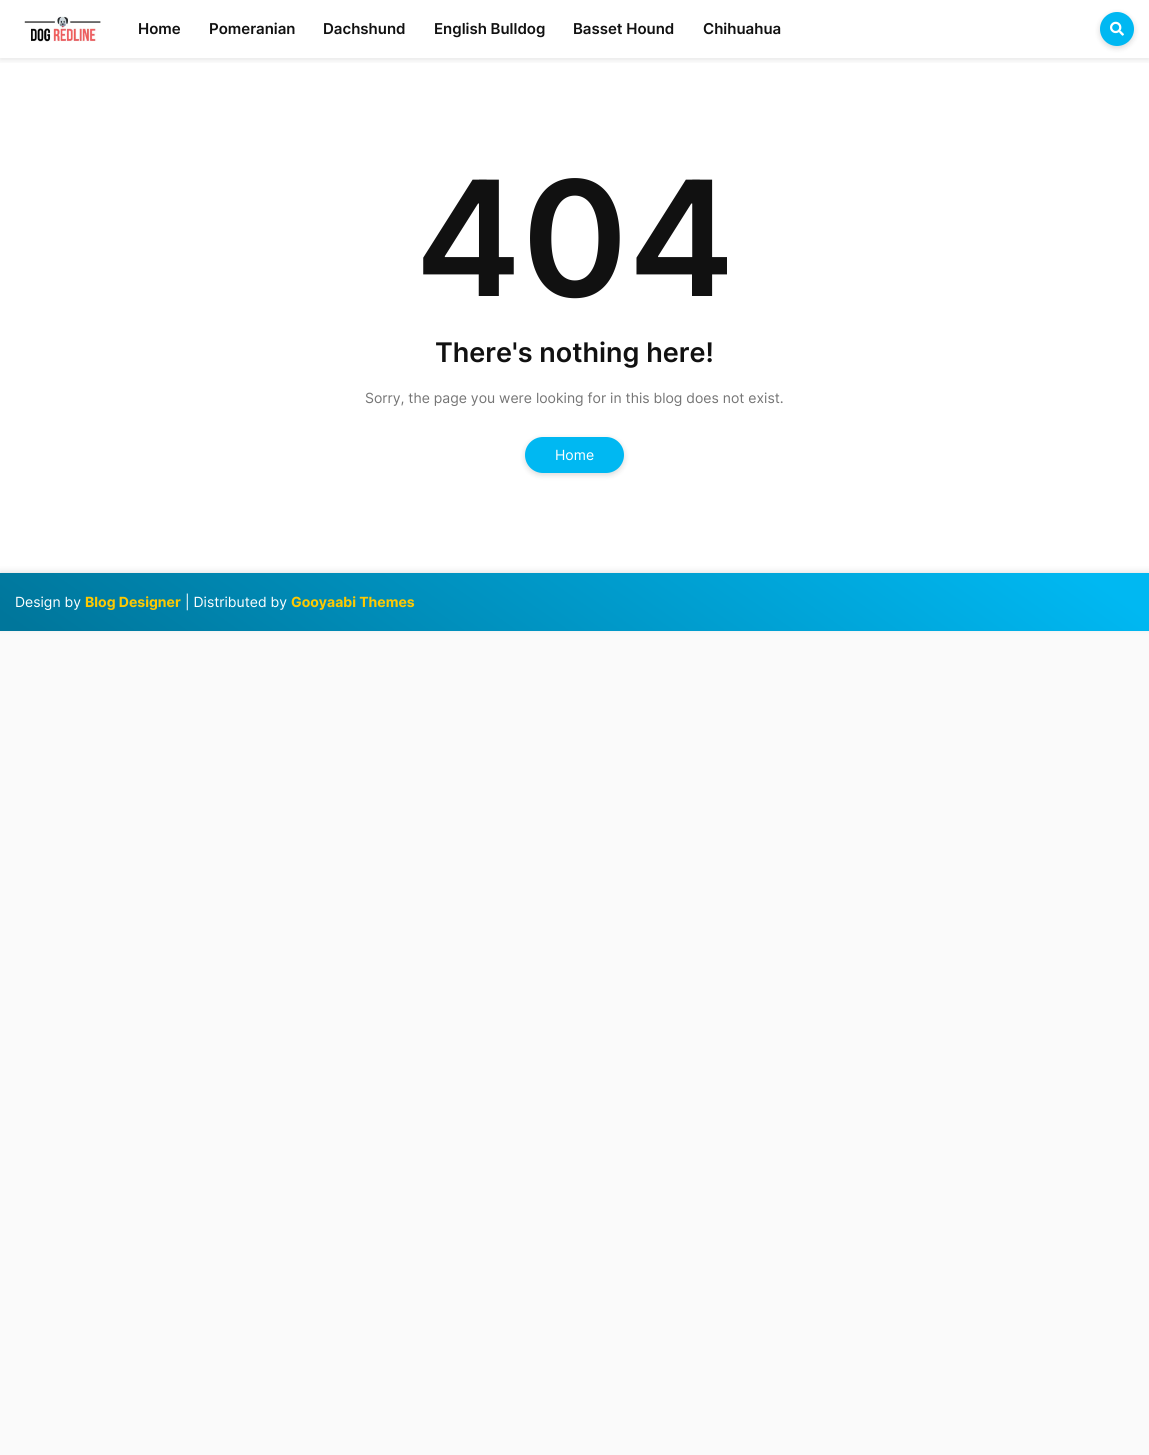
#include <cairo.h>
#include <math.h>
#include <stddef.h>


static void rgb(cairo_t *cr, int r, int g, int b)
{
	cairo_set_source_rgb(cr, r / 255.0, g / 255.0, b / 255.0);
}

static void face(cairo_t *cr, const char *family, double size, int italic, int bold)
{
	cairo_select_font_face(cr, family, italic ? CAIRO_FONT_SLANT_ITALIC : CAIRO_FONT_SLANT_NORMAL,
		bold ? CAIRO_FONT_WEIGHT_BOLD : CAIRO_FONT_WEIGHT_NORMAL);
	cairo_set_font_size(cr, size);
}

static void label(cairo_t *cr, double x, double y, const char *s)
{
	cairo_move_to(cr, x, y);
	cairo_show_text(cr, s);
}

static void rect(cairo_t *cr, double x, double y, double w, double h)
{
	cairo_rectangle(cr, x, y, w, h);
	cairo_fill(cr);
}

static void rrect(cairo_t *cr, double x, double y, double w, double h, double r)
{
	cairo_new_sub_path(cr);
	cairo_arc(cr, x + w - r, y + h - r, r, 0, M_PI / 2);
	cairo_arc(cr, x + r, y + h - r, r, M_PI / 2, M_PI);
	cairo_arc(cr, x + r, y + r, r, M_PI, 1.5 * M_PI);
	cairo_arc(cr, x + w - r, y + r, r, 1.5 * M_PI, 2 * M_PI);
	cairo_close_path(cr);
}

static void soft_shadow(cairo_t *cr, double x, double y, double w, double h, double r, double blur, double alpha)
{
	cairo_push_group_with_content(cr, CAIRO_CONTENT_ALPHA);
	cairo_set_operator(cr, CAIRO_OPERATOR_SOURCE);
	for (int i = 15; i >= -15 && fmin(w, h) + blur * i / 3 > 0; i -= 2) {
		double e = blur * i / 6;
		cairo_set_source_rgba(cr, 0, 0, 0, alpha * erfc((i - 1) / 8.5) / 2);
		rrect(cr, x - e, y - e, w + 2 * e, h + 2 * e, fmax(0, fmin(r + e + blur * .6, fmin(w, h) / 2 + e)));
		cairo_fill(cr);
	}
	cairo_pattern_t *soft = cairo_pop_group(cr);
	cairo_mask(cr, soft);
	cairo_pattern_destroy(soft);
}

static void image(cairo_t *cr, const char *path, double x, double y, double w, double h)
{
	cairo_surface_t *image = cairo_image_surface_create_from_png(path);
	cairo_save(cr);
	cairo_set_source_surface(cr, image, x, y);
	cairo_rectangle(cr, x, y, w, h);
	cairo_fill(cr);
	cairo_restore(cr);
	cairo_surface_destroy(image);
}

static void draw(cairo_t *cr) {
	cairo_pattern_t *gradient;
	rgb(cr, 250, 250, 250);
	cairo_paint(cr);
	rgb(cr, 255, 255, 255);
	rect(cr, 0, 0, 1149, 573);
	cairo_save(cr);
	cairo_rectangle(cr, 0, 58, 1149, 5);
	cairo_clip(cr);
	rgb(cr, 0, 0, 0);
	soft_shadow(cr, 0, 2, 1149, 58, 0, 3, 0.1);
	cairo_restore(cr);
	image(cr, "image0.png", 24, 16, 77, 26);
	face(cr, "Inter SemiBold", 15, 0, 0);
	rgb(cr, 17, 17, 17);
	label(cr, 138, 34, "Home");
	label(cr, 209, 34, "Pomeranian");
	label(cr, 323, 34, "Dachshund");
	label(cr, 434, 34, "English Bulldog");
	label(cr, 573, 34, "Basset Hound");
	label(cr, 703, 34, "Chihuahua");
	rgb(cr, 0, 0, 0);
	soft_shadow(cr, 1100, 14, 34, 34, 17, 3, 0.15);
	rgb(cr, 0, 184, 242);
	cairo_arc(cr, 1117, 29, 17, 0, 2 * M_PI);
	cairo_fill(cr);
	image(cr, "image1.png", 1110, 21, 14, 15);
	face(cr, "Inter SemiBold", 160, 0, 0);
	rgb(cr, 17, 17, 17);
	label(cr, 415, 296, "404");
	face(cr, "Inter SemiBold", 27, 0, 0);
	label(cr, 435, 362, "There's nothing here!");
	face(cr, "Inter", 14, 0, 0);
	rgb(cr, 117, 117, 117);
	label(cr, 365, 403, "Sorry, the page you were looking for in this blog does not exist.");
	rgb(cr, 0, 0, 0);
	soft_shadow(cr, 525, 439, 99, 36, 18, 3, 0.15);
	rgb(cr, 0, 184, 242);
	rrect(cr, 525, 437, 99, 36, 18);
	cairo_fill(cr);
	rgb(cr, 255, 255, 255);
	label(cr, 555, 460, "Home");
	rgb(cr, 0, 0, 0);
	soft_shadow(cr, 0, 571, 1149, 58, 0, 3, 0.1);
	gradient = cairo_pattern_create_linear(776, 313, 373, 891);
	cairo_pattern_add_color_stop_rgba(gradient, 0.05, 0, 0.722, 0.949, 1);
	cairo_pattern_add_color_stop_rgba(gradient, 0.98, 0, 0.463, 0.608, 1);
	cairo_set_source(cr, gradient);
	cairo_pattern_destroy(gradient);
	rect(cr, 0, 573, 1149, 58);
	rgb(cr, 255, 255, 255);
	label(cr, 15, 607, "Design by");
	face(cr, "Inter", 14, 0, 1);
	rgb(cr, 254, 201, 1);
	label(cr, 85, 607, "Blog Designer");
	face(cr, "Inter", 14, 0, 0);
	rgb(cr, 255, 255, 255);
	label(cr, 185, 607, "| Distributed by");
	face(cr, "Inter", 14, 0, 1);
	rgb(cr, 254, 201, 1);
	label(cr, 291, 607, "Gooyaabi Themes");
}

int main(void) {
	cairo_surface_t *surface = cairo_image_surface_create(CAIRO_FORMAT_RGB24, 1149, 1455);
	cairo_t *cr = cairo_create(surface);
	cairo_font_options_t *options = cairo_font_options_create();
	cairo_font_options_set_hint_metrics(options, CAIRO_HINT_METRICS_OFF);
	cairo_font_options_set_hint_style(options, CAIRO_HINT_STYLE_NONE);
	cairo_set_font_options(cr, options);
	cairo_set_miter_limit(cr, 4);
	draw(cr);
	cairo_surface_write_to_png(surface, "render.png");
	cairo_font_options_destroy(options);
	cairo_destroy(cr);
	cairo_surface_destroy(surface);
	return 0;
}
